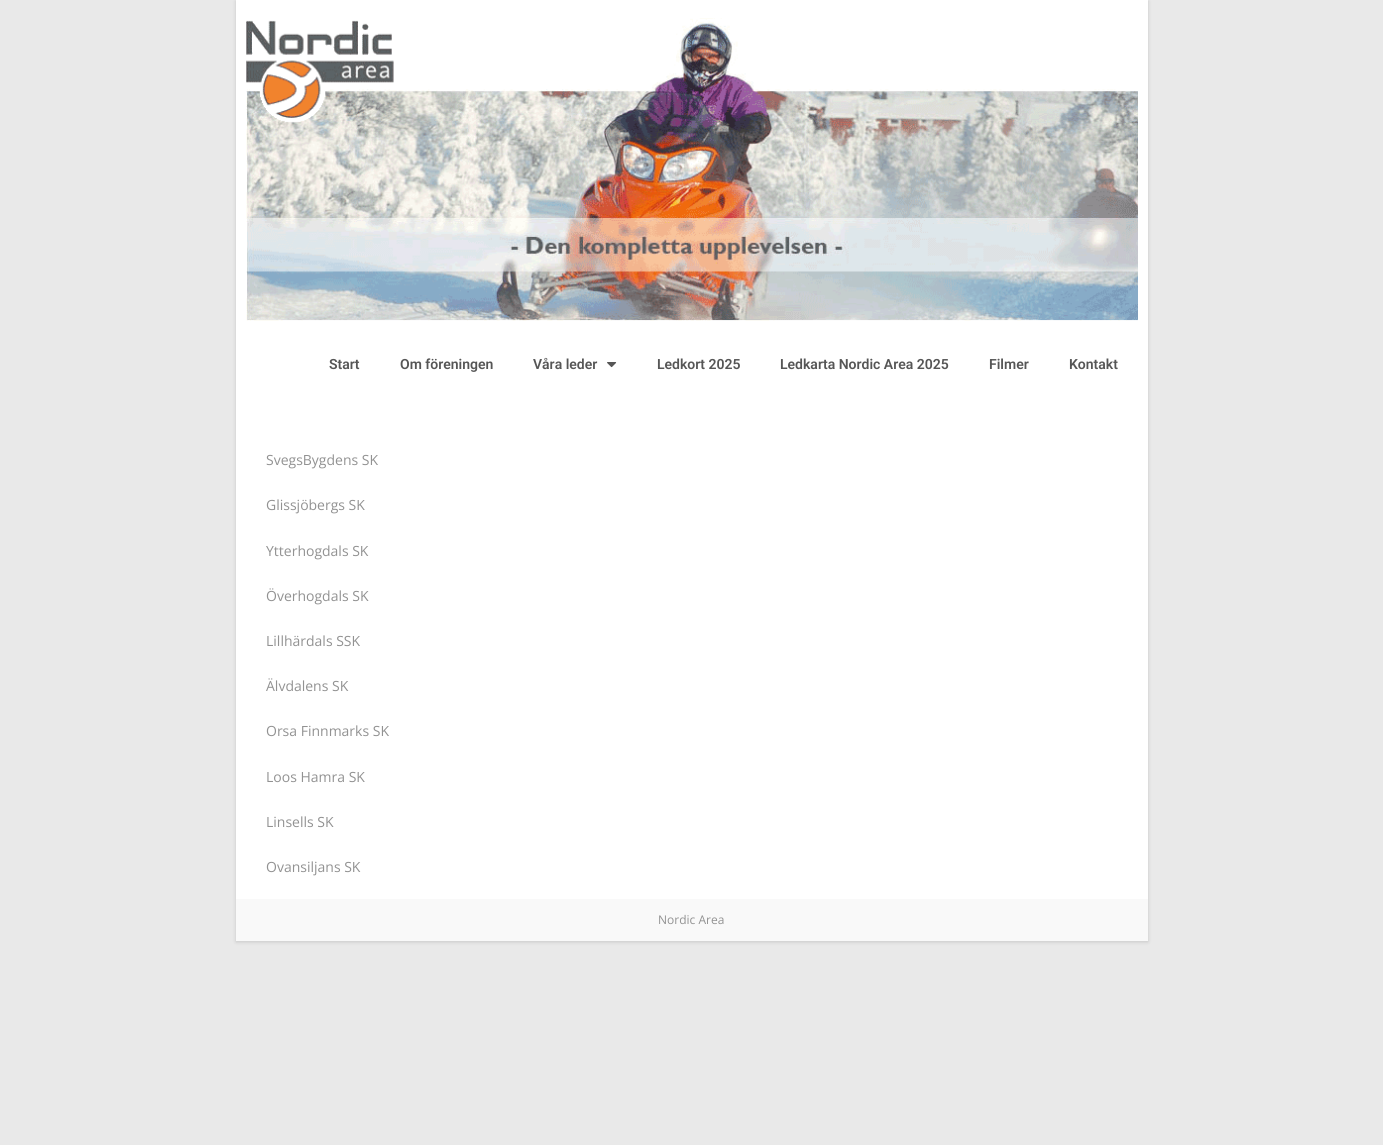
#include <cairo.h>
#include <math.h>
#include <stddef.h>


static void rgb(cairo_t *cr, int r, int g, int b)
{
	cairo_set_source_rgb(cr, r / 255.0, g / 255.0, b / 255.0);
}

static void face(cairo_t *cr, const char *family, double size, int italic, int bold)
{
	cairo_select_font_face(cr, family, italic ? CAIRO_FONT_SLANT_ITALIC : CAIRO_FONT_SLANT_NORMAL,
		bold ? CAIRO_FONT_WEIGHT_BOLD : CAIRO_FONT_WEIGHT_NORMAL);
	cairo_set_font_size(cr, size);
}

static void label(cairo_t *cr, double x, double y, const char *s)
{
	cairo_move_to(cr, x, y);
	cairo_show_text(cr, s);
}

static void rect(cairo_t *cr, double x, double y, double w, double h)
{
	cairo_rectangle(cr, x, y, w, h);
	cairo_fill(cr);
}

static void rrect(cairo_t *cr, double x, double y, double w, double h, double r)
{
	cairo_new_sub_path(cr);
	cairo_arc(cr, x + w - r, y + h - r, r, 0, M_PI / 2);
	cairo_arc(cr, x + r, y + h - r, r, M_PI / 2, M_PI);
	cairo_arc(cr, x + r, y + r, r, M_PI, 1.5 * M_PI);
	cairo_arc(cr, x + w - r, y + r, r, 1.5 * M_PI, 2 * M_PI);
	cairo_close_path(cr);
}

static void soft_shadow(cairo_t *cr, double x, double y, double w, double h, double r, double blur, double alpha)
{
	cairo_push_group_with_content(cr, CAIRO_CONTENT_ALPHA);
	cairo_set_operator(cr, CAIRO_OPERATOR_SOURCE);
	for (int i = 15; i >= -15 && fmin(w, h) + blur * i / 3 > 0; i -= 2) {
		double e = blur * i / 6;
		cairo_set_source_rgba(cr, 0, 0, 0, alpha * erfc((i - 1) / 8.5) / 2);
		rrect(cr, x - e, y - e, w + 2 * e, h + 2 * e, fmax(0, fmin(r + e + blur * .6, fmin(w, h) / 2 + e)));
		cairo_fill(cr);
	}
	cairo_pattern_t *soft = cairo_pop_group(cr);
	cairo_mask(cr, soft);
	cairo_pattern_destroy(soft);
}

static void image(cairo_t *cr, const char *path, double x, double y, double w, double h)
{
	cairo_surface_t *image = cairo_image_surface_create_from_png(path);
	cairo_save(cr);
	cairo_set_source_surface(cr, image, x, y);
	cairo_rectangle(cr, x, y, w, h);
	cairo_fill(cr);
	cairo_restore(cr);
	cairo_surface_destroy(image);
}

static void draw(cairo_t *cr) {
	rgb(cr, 233, 233, 233);
	cairo_paint(cr);
	rgb(cr, 0, 0, 0);
	soft_shadow(cr, 236, 1, 912, 941, 0, 2, 0.15);
	rgb(cr, 255, 255, 255);
	rect(cr, 236, 0, 912, 899);
	image(cr, "image0.png", 246, 18, 892, 303);
	face(cr, "Roboto SemiBold", 14, 0, 0);
	rgb(cr, 86, 86, 86);
	label(cr, 329, 369, "Start");
	label(cr, 400, 369, "Om föreningen");
	label(cr, 533, 369, "Våra leder");
	image(cr, "image1.png", 607, 362, 10, 6);
	label(cr, 657, 369, "Ledkort 2025");
	label(cr, 780, 369, "Ledkarta Nordic Area 2025");
	label(cr, 989, 369, "Filmer");
	label(cr, 1069, 369, "Kontakt");
	face(cr, "Open Sans", 14, 0, 0);
	rgb(cr, 146, 146, 146);
	label(cr, 266, 465, "SvegsBygdens SK");
	label(cr, 266, 510, "Glissjöbergs SK");
	label(cr, 266, 556, "Ytterhogdals SK");
	label(cr, 266, 601, "Överhogdals SK");
	label(cr, 266, 646, "Lillhärdals SSK");
	label(cr, 266, 691, "Älvdalens SK");
	label(cr, 266, 736, "Orsa Finnmarks SK");
	label(cr, 266, 782, "Loos Hamra SK");
	label(cr, 266, 827, "Linsells SK");
	label(cr, 266, 872, "Ovansiljans SK");
	rgb(cr, 249, 249, 249);
	rect(cr, 236, 899, 912, 42);
	face(cr, "Open Sans", 12, 0, 0);
	rgb(cr, 146, 146, 146);
	label(cr, 658, 924, "Nordic Area");
}

int main(void) {
	cairo_surface_t *surface = cairo_image_surface_create(CAIRO_FORMAT_RGB24, 1383, 1145);
	cairo_t *cr = cairo_create(surface);
	cairo_font_options_t *options = cairo_font_options_create();
	cairo_font_options_set_hint_metrics(options, CAIRO_HINT_METRICS_OFF);
	cairo_font_options_set_hint_style(options, CAIRO_HINT_STYLE_NONE);
	cairo_set_font_options(cr, options);
	cairo_set_miter_limit(cr, 4);
	draw(cr);
	cairo_surface_write_to_png(surface, "render.png");
	cairo_font_options_destroy(options);
	cairo_destroy(cr);
	cairo_surface_destroy(surface);
	return 0;
}
